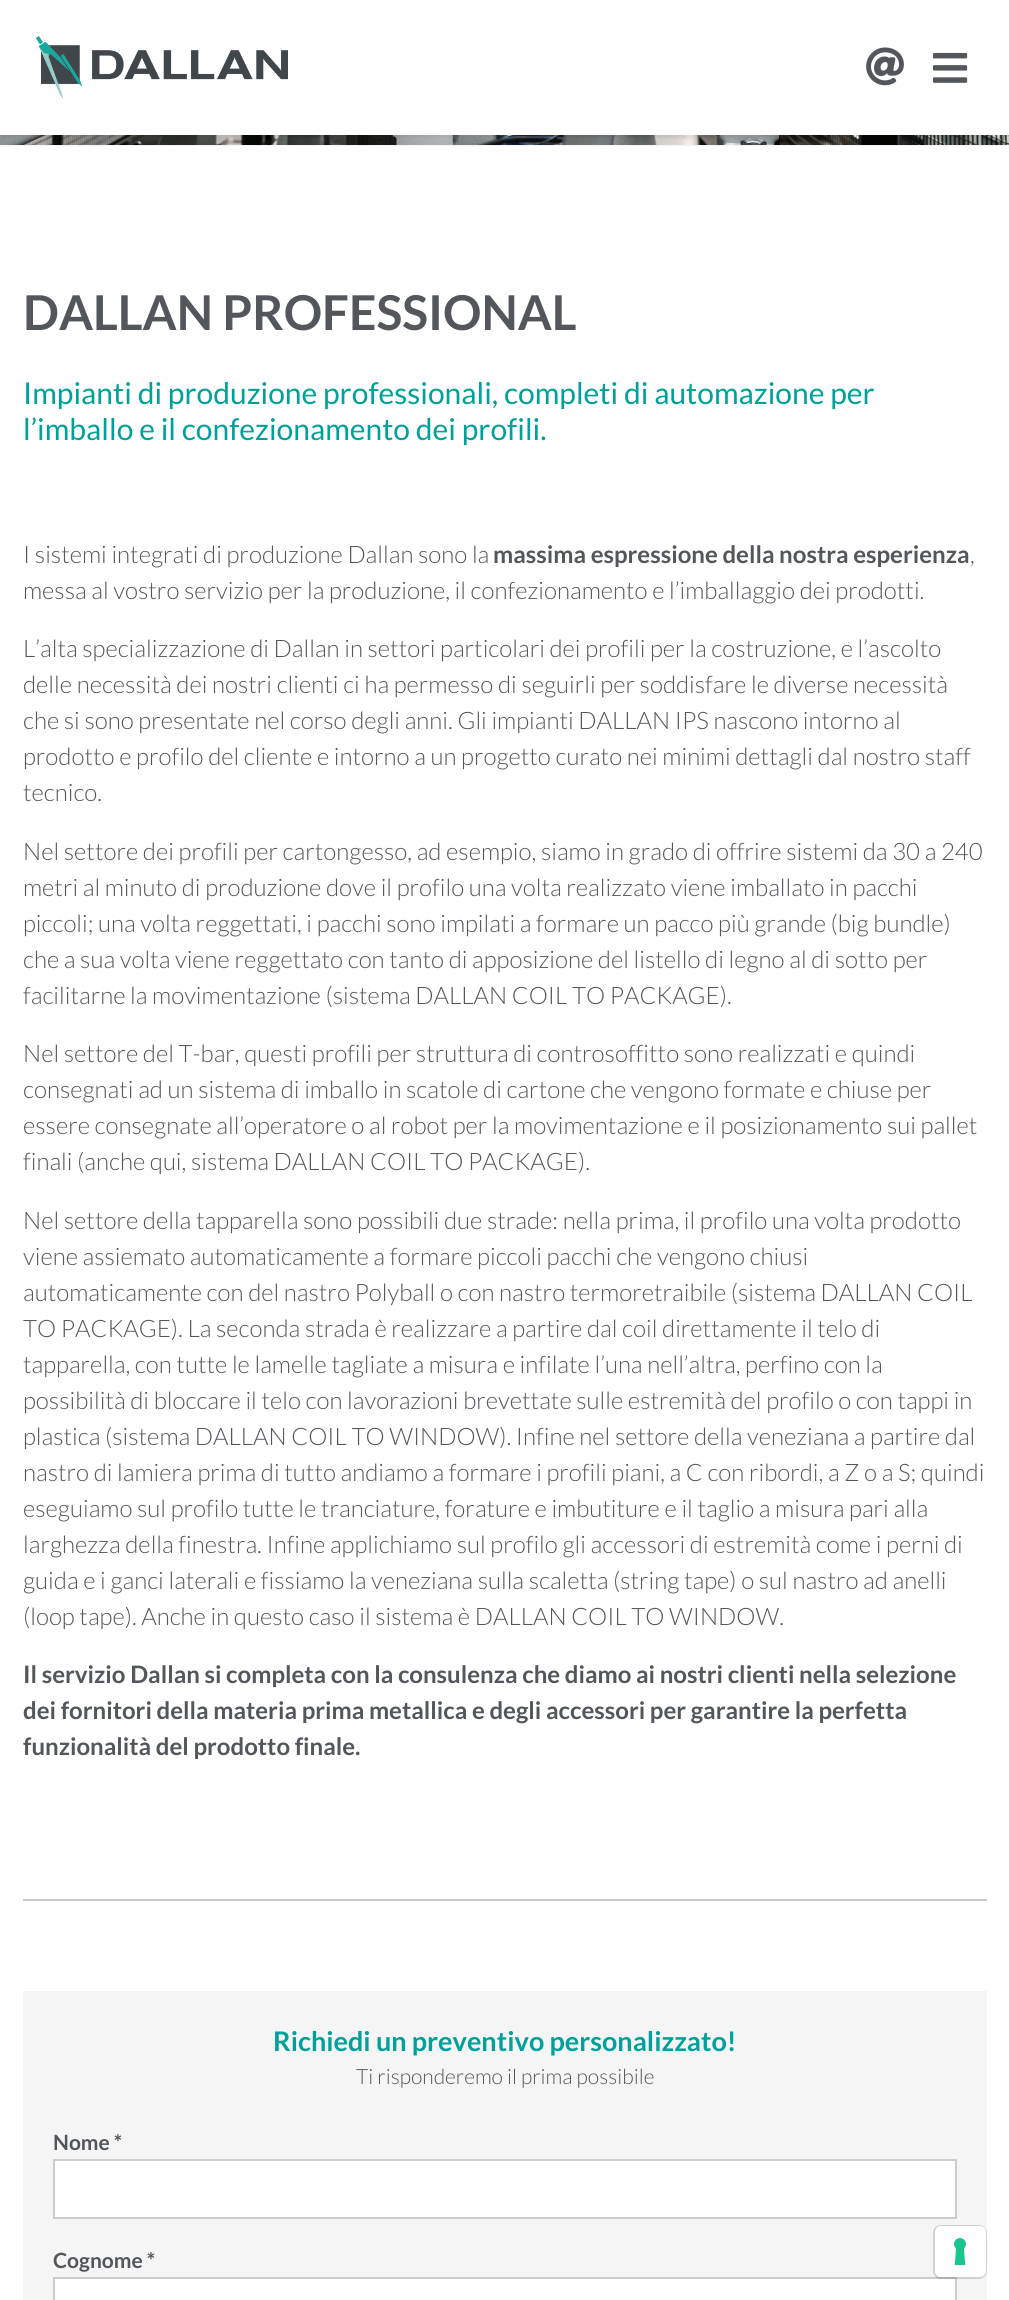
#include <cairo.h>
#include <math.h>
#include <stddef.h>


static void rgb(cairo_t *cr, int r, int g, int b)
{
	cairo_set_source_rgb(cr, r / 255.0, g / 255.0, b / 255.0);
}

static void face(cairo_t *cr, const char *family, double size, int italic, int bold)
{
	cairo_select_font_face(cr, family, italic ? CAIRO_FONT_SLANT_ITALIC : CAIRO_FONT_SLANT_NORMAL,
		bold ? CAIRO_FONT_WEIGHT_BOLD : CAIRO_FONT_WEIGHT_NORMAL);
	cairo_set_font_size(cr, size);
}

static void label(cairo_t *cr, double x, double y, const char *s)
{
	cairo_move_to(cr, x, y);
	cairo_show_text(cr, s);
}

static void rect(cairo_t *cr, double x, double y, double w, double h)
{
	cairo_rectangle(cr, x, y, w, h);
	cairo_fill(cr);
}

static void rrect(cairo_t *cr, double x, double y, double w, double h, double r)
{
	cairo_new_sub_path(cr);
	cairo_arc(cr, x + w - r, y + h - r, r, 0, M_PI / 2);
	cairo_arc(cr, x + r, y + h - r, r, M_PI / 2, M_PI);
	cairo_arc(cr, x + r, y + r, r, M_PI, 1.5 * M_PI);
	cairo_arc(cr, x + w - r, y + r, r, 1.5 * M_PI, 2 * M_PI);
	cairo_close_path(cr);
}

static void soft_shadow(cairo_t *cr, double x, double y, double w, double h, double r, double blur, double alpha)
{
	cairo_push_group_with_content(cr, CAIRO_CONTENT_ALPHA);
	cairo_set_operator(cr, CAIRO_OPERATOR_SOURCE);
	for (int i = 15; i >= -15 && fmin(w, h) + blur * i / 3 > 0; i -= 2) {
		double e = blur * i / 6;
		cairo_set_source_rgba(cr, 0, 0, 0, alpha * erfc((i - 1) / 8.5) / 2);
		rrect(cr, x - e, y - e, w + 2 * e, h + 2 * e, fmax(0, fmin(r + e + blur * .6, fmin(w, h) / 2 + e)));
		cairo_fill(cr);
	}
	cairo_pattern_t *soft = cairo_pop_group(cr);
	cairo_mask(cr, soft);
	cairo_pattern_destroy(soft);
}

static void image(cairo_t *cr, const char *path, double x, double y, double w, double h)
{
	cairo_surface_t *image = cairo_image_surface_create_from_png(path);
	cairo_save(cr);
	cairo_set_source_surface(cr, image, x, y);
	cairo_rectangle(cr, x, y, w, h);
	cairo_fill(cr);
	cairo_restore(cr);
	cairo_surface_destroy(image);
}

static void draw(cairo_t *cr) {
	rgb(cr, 255, 255, 255);
	cairo_paint(cr);
	image(cr, "image3.png", 0, 135, 1009, 10);
	rgb(cr, 0, 0, 0);
	soft_shadow(cr, 0, 2, 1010, 135, 0, 1, 0.05);
	rgb(cr, 255, 255, 255);
	rect(cr, 0, 1, 1009, 134);
	image(cr, "image0.png", 36, 36, 252, 63);
	image(cr, "image1.png", 866, 47, 38, 39);
	image(cr, "image2.png", 933, 52, 35, 31);
	rgb(cr, 245, 245, 245);
	rect(cr, 0, 145, 1009, 1);
	face(cr, "Lato", 48, 0, 1);
	rgb(cr, 83, 86, 90);
	label(cr, 23, 330, "DALLAN PROFESSIONAL");
	face(cr, "Lato", 30, 0, 0);
	rgb(cr, 0, 161, 154);
	label(cr, 23, 404, "Impianti di produzione professionali, completi di automazione per");
	label(cr, 23, 440, "l’imballo e il confezionamento dei profili.");
	face(cr, "Lato Light", 24, 0, 0);
	rgb(cr, 83, 86, 90);
	label(cr, 23, 563, "I sistemi integrati di produzione Dallan sono la");
	face(cr, "Lato", 24, 0, 1);
	label(cr, 493, 563, "massima espressione della nostra esperienza");
	face(cr, "Lato Light", 24, 0, 0);
	label(cr, 970, 563, ",");
	label(cr, 23, 599, "messa al vostro servizio per la produzione, il confezionamento e l’imballaggio dei prodotti.");
	label(cr, 23, 657, "L’alta specializzazione di Dallan in settori particolari dei profili per la costruzione, e l’ascolto");
	label(cr, 23, 693, "delle necessità dei nostri clienti ci ha permesso di seguirli per soddisfare le diverse necessità");
	label(cr, 23, 729, "che si sono presentate nel corso degli anni. Gli impianti DALLAN IPS nascono intorno al");
	label(cr, 23, 765, "prodotto e profilo del cliente e intorno a un progetto curato nei minimi dettagli dal nostro staff");
	label(cr, 23, 801, "tecnico.");
	label(cr, 23, 860, "Nel settore dei profili per cartongesso, ad esempio, siamo in grado di offrire sistemi da 30 a 240");
	label(cr, 23, 896, "metri al minuto di produzione dove il profilo una volta realizzato viene imballato in pacchi");
	label(cr, 23, 932, "piccoli; una volta reggettati, i pacchi sono impilati a formare un pacco più grande (big bundle)");
	label(cr, 23, 968, "che a sua volta viene reggettato con tanto di apposizione del listello di legno al di sotto per");
	label(cr, 23, 1004, "facilitarne la movimentazione (sistema DALLAN COIL TO PACKAGE).");
	label(cr, 23, 1062, "Nel settore del T-bar, questi profili per struttura di controsoffitto sono realizzati e quindi");
	label(cr, 23, 1098, "consegnati ad un sistema di imballo in scatole di cartone che vengono formate e chiuse per");
	label(cr, 23, 1134, "essere consegnate all’operatore o al robot per la movimentazione e il posizionamento sui pallet");
	label(cr, 23, 1170, "finali (anche qui, sistema DALLAN COIL TO PACKAGE).");
	label(cr, 23, 1229, "Nel settore della tapparella sono possibili due strade: nella prima, il profilo una volta prodotto");
	label(cr, 23, 1265, "viene assiemato automaticamente a formare piccoli pacchi che vengono chiusi");
	label(cr, 23, 1301, "automaticamente con del nastro Polyball o con nastro termoretraibile (sistema DALLAN COIL");
	label(cr, 23, 1337, "TO PACKAGE). La seconda strada è realizzare a partire dal coil direttamente il telo di");
	label(cr, 23, 1373, "tapparella, con tutte le lamelle tagliate a misura e infilate l’una nell’altra, perfino con la");
	label(cr, 23, 1409, "possibilità di bloccare il telo con lavorazioni brevettate sulle estremità del profilo o con tappi in");
	label(cr, 23, 1445, "plastica (sistema DALLAN COIL TO WINDOW). Infine nel settore della veneziana a partire dal");
	label(cr, 23, 1481, "nastro di lamiera prima di tutto andiamo a formare i profili piani, a C con ribordi, a Z o a S; quindi");
	label(cr, 23, 1517, "eseguiamo sul profilo tutte le tranciature, forature e imbutiture e il taglio a misura pari alla");
	label(cr, 23, 1553, "larghezza della finestra. Infine applichiamo sul profilo gli accessori di estremità come i perni di");
	label(cr, 23, 1589, "guida e i ganci laterali e fissiamo la veneziana sulla scaletta (string tape) o sul nastro ad anelli");
	label(cr, 23, 1625, "(loop tape). Anche in questo caso il sistema è DALLAN COIL TO WINDOW.");
	face(cr, "Lato", 24, 0, 1);
	label(cr, 23, 1683, "Il servizio Dallan si completa con la consulenza che diamo ai nostri clienti nella selezione");
	label(cr, 23, 1719, "dei fornitori della materia prima metallica e degli accessori per garantire la perfetta");
	label(cr, 23, 1755, "funzionalità del prodotto finale.");
	rgb(cr, 204, 204, 204);
	rect(cr, 23, 1899, 964, 2);
	rgb(cr, 245, 245, 245);
	rect(cr, 23, 1991, 964, 309);
	face(cr, "Lato", 27, 0, 1);
	rgb(cr, 0, 161, 154);
	label(cr, 273, 2051, "Richiedi un preventivo personalizzato!");
	face(cr, "Lato Light", 21, 0, 0);
	rgb(cr, 83, 86, 90);
	label(cr, 356, 2084, "Ti risponderemo il prima possibile");
	face(cr, "Lato", 21, 0, 1);
	label(cr, 53, 2150, "Nome *");
	rgb(cr, 255, 255, 255);
	cairo_rectangle(cr, 54, 2160, 902, 58);
	cairo_fill_preserve(cr);
	rgb(cr, 204, 204, 204);
	cairo_stroke(cr);
	rgb(cr, 83, 86, 90);
	label(cr, 53, 2268, "Cognome *");
	rgb(cr, 255, 255, 255);
	cairo_rectangle(cr, 54, 2278, 902, 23);
	cairo_fill_preserve(cr);
	rgb(cr, 204, 204, 204);
	cairo_stroke(cr);
	rrect(cr, 934, 2226, 52, 52, 7);
	cairo_set_source_rgba(cr, 0, 0, 0, 0.15);
	cairo_stroke(cr);
	rgb(cr, 255, 255, 255);
	rrect(cr, 935, 2226, 51, 51, 6);
	cairo_fill(cr);
	image(cr, "image4.png", 954, 2238, 12, 27);
}

int main(void) {
	cairo_surface_t *surface = cairo_image_surface_create(CAIRO_FORMAT_RGB24, 1009, 2300);
	cairo_t *cr = cairo_create(surface);
	cairo_font_options_t *options = cairo_font_options_create();
	cairo_font_options_set_hint_metrics(options, CAIRO_HINT_METRICS_OFF);
	cairo_font_options_set_hint_style(options, CAIRO_HINT_STYLE_NONE);
	cairo_set_font_options(cr, options);
	cairo_set_miter_limit(cr, 4);
	draw(cr);
	cairo_surface_write_to_png(surface, "render.png");
	cairo_font_options_destroy(options);
	cairo_destroy(cr);
	cairo_surface_destroy(surface);
	return 0;
}
